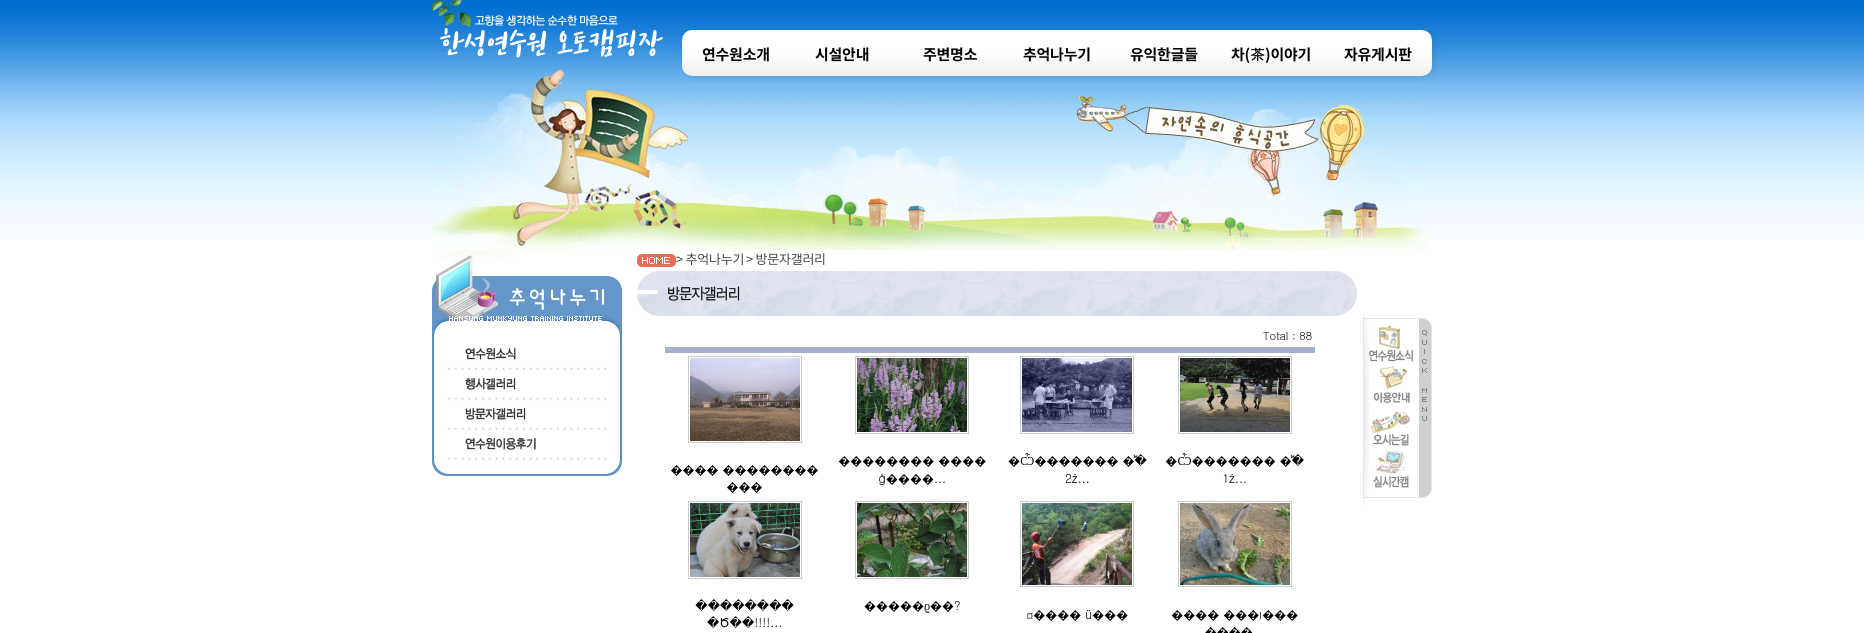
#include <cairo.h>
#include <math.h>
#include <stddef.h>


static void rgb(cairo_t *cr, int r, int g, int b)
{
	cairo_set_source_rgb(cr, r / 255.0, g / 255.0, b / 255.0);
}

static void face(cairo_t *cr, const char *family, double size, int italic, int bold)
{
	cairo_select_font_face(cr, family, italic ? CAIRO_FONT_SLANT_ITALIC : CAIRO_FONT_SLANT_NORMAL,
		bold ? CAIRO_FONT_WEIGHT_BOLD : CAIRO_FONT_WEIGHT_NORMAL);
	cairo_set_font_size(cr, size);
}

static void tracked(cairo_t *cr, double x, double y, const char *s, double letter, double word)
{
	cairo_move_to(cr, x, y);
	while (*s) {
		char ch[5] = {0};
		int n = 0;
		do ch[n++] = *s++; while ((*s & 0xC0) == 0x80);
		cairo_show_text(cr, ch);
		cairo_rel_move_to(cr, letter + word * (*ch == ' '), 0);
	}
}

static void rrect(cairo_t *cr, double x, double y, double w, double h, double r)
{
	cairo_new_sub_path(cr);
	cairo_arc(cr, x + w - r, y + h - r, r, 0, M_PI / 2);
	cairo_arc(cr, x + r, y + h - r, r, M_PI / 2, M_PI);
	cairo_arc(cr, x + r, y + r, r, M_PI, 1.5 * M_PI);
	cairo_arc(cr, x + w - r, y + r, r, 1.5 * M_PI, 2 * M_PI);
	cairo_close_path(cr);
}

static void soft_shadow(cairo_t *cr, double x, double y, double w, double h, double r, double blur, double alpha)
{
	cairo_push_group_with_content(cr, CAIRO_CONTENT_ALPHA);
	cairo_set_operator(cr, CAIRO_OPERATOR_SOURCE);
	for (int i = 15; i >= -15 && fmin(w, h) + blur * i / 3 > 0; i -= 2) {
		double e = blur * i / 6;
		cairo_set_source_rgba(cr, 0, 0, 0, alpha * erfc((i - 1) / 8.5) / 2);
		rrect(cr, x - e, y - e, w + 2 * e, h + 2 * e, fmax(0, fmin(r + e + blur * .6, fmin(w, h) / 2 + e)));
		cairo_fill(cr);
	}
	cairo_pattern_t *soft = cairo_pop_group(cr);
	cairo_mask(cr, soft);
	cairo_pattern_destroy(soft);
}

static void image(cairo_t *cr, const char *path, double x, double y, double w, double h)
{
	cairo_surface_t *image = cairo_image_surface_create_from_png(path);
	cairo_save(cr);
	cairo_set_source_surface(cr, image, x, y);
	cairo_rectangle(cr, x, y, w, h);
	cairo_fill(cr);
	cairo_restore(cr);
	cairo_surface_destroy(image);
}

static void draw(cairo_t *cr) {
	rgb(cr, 255, 255, 255);
	cairo_paint(cr);
	image(cr, "image0.png", 0, 0, 1864, 240);
	image(cr, "image1.png", 432, 0, 231, 58);
	image(cr, "image3.png", 432, 69, 997, 181);
	rgb(cr, 0, 0, 0);
	soft_shadow(cr, 684, 32, 750, 46, 10, 4, 0.09);
	image(cr, "image2.png", 682, 30, 750, 46);
	face(cr, "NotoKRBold", 15, 0, 1);
	rgb(cr, 0, 0, 0);
	tracked(cr, 702, 60, "연수원소개", -0.25, 0);
	tracked(cr, 815, 60, "시설안내", -0.25, 0);
	tracked(cr, 923, 60, "주변명소", -0.25, 0);
	tracked(cr, 1023, 60, "추억나누기", -0.25, 0);
	tracked(cr, 1130, 60, "유익한글들", -0.25, 0);
	tracked(cr, 1231, 60, "차(", -0.25, 0);
	face(cr, "Gulim", 15, 0, 1);
	tracked(cr, 1250, 60, "茶", -0.25, 0);
	face(cr, "NotoKRBold", 15, 0, 1);
	tracked(cr, 1265, 60, ")이야기", -0.25, 0);
	tracked(cr, 1344, 60, "자유게시판", -0.25, 0);
	image(cr, "image4.png", 432, 250, 190, 90);
	image(cr, "image5.png", 432, 340, 190, 30);
	image(cr, "image6.png", 432, 370, 190, 30);
	image(cr, "image7.png", 432, 400, 190, 30);
	image(cr, "image8.png", 432, 430, 190, 30);
	image(cr, "image9.png", 432, 460, 190, 16);
	image(cr, "image10.png", 637, 254, 39, 13);
	face(cr, "Noto Sans KR Light", 13, 0, 0);
	rgb(cr, 51, 51, 51);
	tracked(cr, 676, 264, "> 추억나누기", -0.25, 0);
	tracked(cr, 746, 264, "> 방문자갤러리", -0.25, 0);
	image(cr, "image11.png", 637, 271, 720, 45);
	image(cr, "image12.png", 665, 332, 650, 301);
	image(cr, "image13.png", 1363, 313, 69, 193);
}

int main(void) {
	cairo_surface_t *surface = cairo_image_surface_create(CAIRO_FORMAT_RGB24, 1864, 633);
	cairo_t *cr = cairo_create(surface);
	cairo_font_options_t *options = cairo_font_options_create();
	cairo_font_options_set_hint_metrics(options, CAIRO_HINT_METRICS_OFF);
	cairo_font_options_set_hint_style(options, CAIRO_HINT_STYLE_NONE);
	cairo_set_font_options(cr, options);
	cairo_set_miter_limit(cr, 4);
	draw(cr);
	cairo_surface_write_to_png(surface, "render.png");
	cairo_font_options_destroy(options);
	cairo_destroy(cr);
	cairo_surface_destroy(surface);
	return 0;
}
